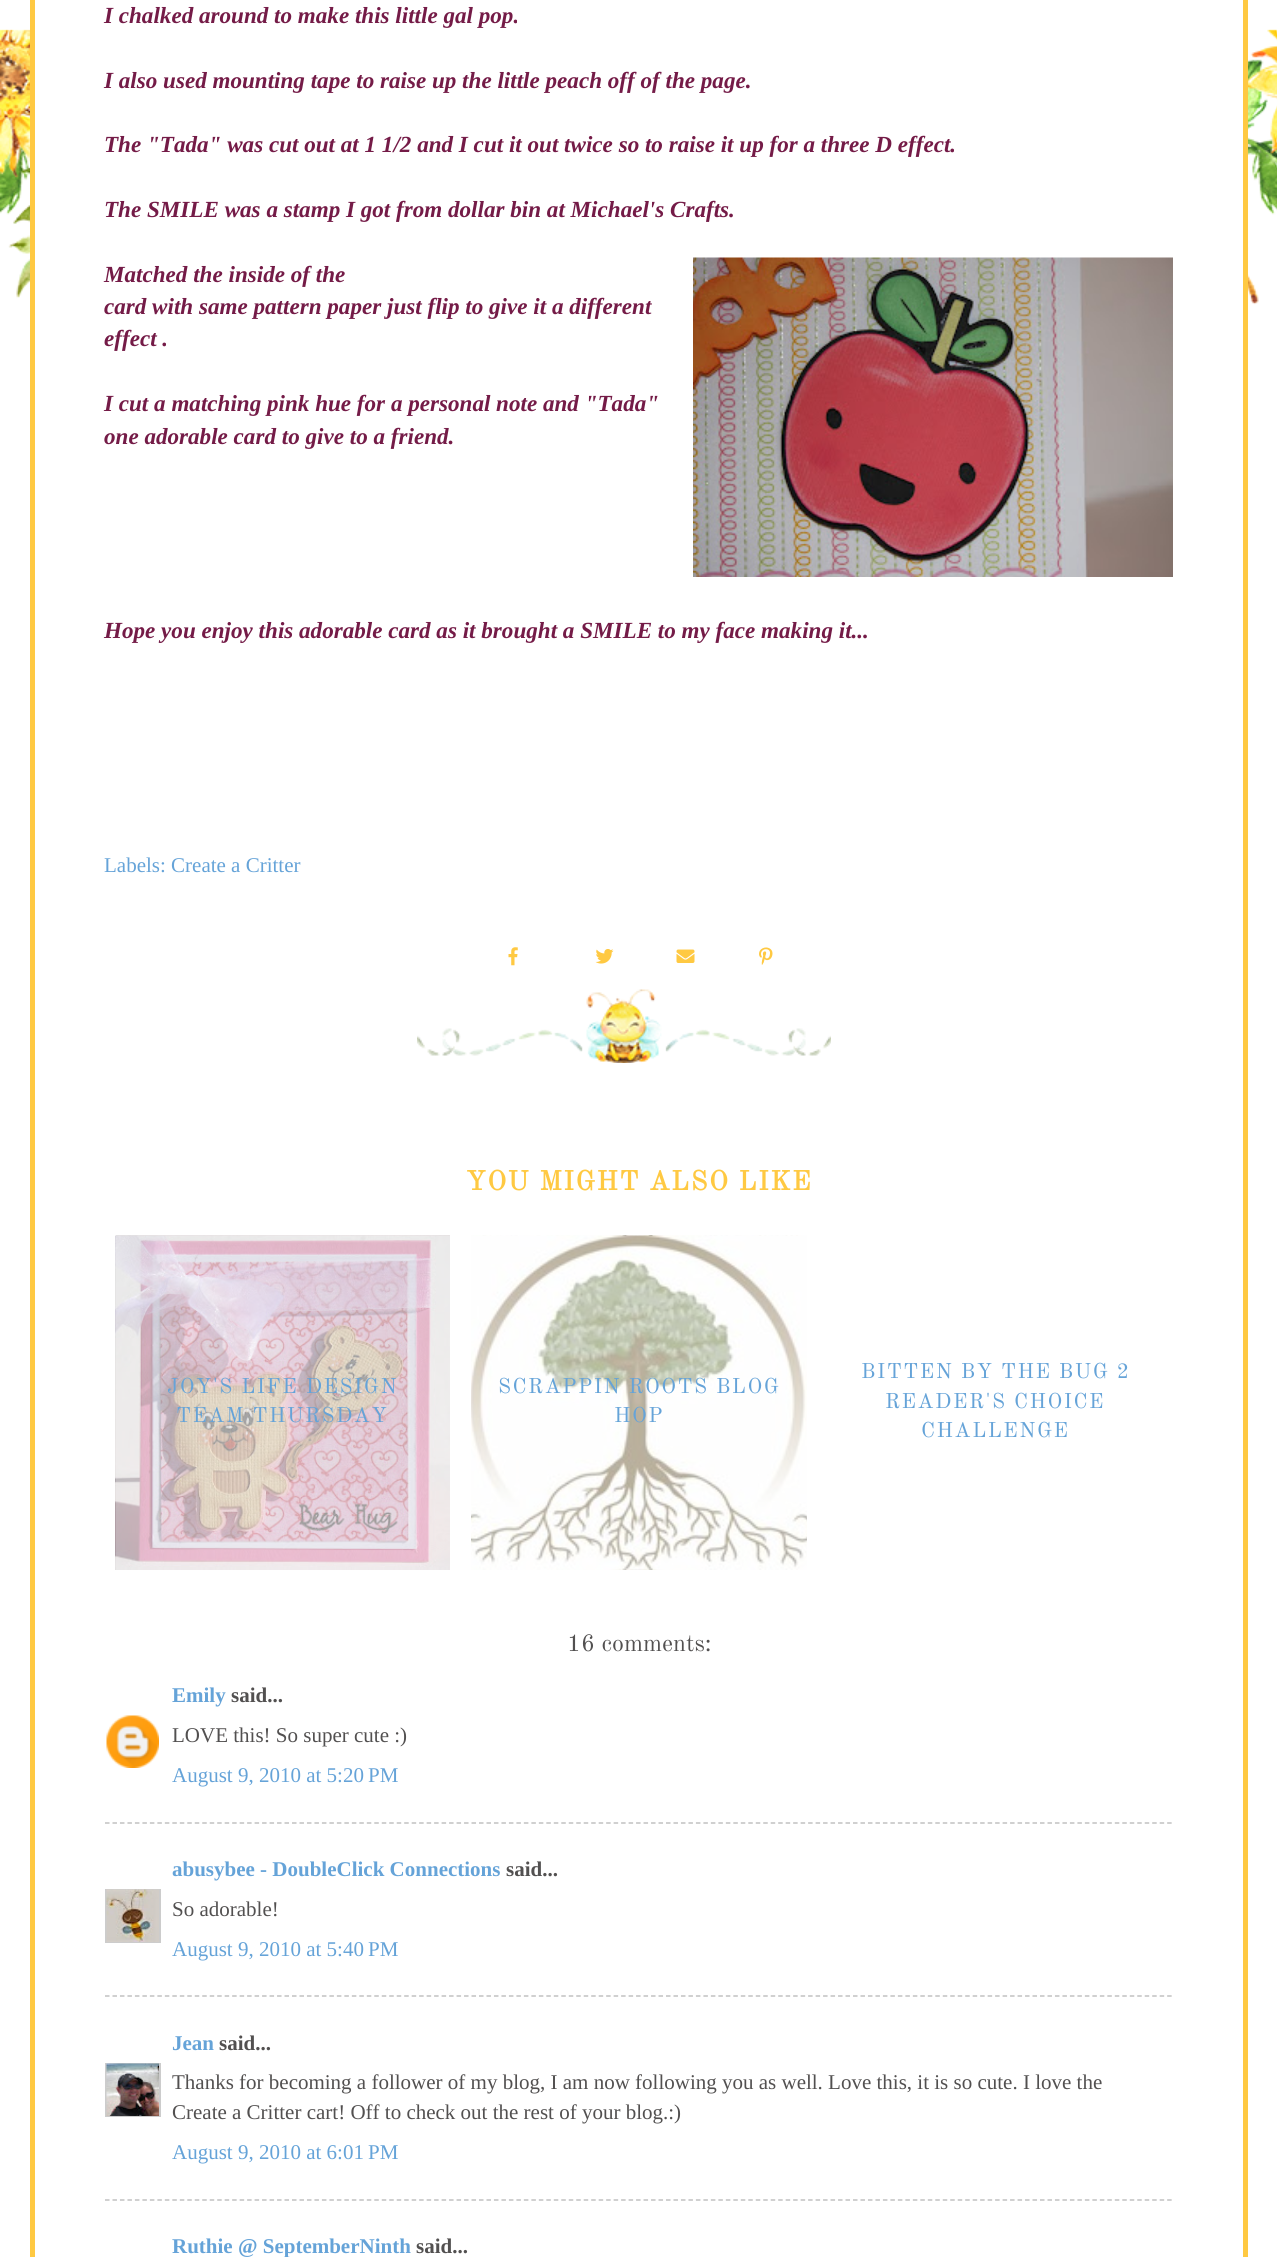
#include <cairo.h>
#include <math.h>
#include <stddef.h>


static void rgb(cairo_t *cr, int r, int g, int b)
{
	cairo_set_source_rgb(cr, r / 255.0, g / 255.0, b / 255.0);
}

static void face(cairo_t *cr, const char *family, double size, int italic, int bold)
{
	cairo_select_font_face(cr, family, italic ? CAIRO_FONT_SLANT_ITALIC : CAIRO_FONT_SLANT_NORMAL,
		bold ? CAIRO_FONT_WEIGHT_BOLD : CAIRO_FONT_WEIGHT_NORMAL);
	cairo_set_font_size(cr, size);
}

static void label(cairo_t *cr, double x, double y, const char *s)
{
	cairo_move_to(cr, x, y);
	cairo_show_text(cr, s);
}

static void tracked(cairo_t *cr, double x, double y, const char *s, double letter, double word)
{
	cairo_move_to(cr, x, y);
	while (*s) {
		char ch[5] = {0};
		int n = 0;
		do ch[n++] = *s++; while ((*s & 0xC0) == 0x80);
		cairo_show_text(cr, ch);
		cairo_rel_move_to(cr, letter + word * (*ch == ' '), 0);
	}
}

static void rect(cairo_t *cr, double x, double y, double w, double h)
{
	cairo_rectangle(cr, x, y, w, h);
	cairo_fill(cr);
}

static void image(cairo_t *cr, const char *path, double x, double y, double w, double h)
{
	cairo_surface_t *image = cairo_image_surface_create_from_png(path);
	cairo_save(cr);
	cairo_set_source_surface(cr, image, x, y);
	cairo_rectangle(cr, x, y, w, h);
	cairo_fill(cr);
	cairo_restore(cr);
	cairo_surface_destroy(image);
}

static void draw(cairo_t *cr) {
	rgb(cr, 255, 255, 255);
	cairo_paint(cr);
	image(cr, "image0.png", 0, 29, 1277, 276);
	rgb(cr, 255, 255, 255);
	rect(cr, 35, 29, 1208, 276);
	cairo_rectangle(cr, 32.5, -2.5, 1213, 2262);
	rgb(cr, 255, 201, 66);
	cairo_set_line_width(cr, 5);
	cairo_stroke(cr);
	face(cr, "Liberation Serif", 23.1, 1, 1);
	rgb(cr, 116, 27, 71);
	label(cr, 104, 23, "I chalked around to make this little gal pop.");
	label(cr, 104, 88, "I also used mounting tape to raise up the little peach off of the page.");
	label(cr, 104, 152, "The \"Tada\" was cut out at 1 1/2 and I cut it out twice so to raise it up for a three D effect.");
	label(cr, 104, 217, "The SMILE was a stamp I got from dollar bin at Michael's Crafts.");
	label(cr, 104, 282, "Matched the inside of the");
	image(cr, "image1.png", 693, 257, 480, 320);
	label(cr, 104, 314, "card with same pattern paper just flip to give it a different");
	label(cr, 104, 346, "effect .");
	label(cr, 104, 411, "I cut a matching pink hue for a personal note and \"Tada\"");
	label(cr, 104, 444, "one adorable card to give to a friend.");
	label(cr, 104, 638, "Hope you enjoy this adorable card as it brought a SMILE to my face making it...");
	image(cr, "image2.png", 417, 989, 414, 74);
	face(cr, "Liberation Serif", 21, 0, 0);
	rgb(cr, 101, 163, 216);
	label(cr, 104, 872, "Labels: Create a Critter");
	image(cr, "image3.png", 508, 947, 10, 19);
	image(cr, "image4.png", 595, 949, 19, 15);
	image(cr, "image5.png", 676, 949, 19, 14);
	image(cr, "image6.png", 759, 947, 14, 18);
	face(cr, "Old Standard TT", 27, 0, 1);
	rgb(cr, 255, 201, 66);
	tracked(cr, 466, 1190, "YOU MIGHT ALSO LIKE", 1.5, 0);
	image(cr, "image7.png", 115, 1235, 335, 335);
	face(cr, "Old Standard TT", 21, 0, 0);
	rgb(cr, 101, 163, 216);
	tracked(cr, 167, 1393, "JOY'S LIFE DESIGN", 1.5, 0);
	tracked(cr, 176, 1422, "TEAM THURSDAY", 1.5, 0);
	image(cr, "image8.png", 471, 1235, 336, 335);
	tracked(cr, 498, 1393, "SCRAPPIN ROOTS BLOG", 1.5, 0);
	tracked(cr, 614, 1422, "HOP", 1.5, 0);
	tracked(cr, 861, 1378, "BITTEN BY THE BUG 2", 1.5, 0);
	tracked(cr, 885, 1408, "READER'S CHOICE", 1.5, 0);
	tracked(cr, 921, 1437, "CHALLENGE", 1.5, 0);
	face(cr, "Old Standard TT", 24, 0, 0);
	rgb(cr, 82, 80, 80);
	label(cr, 567, 1651, "16 comments:");
	face(cr, "Liberation Serif", 21, 0, 1);
	rgb(cr, 101, 163, 216);
	label(cr, 172, 1702, "Emily");
	rgb(cr, 82, 80, 80);
	label(cr, 231, 1702, "said...");
	image(cr, "image9.png", 106, 1715, 53, 53);
	face(cr, "Liberation Serif", 21, 0, 0);
	label(cr, 172, 1742, "LOVE this! So super cute :)");
	rgb(cr, 101, 163, 216);
	label(cr, 172, 1782, "August 9, 2010 at 5:20 PM");
	cairo_new_path(cr);
	cairo_move_to(cr, 105, 1823);
	cairo_line_to(cr, 1173, 1823);
	rgb(cr, 192, 192, 192);
	cairo_set_line_width(cr, 1.5);
	cairo_set_dash(cr, (double[]){4.5, 2.98}, 2, 0);
	cairo_stroke(cr);
	face(cr, "Liberation Serif", 21, 0, 1);
	rgb(cr, 101, 163, 216);
	label(cr, 172, 1876, "abusybee - DoubleClick Connections");
	rgb(cr, 82, 80, 80);
	label(cr, 506, 1876, "said...");
	cairo_save(cr);
	cairo_rectangle(cr, 105, 1889, 56, 54);
	cairo_clip(cr);
	cairo_rectangle(cr, 106, 1890, 54, 53);
	rgb(cr, 204, 204, 204);
	cairo_set_line_width(cr, 2);
	cairo_set_dash(cr, NULL, 0, 0);
	cairo_stroke(cr);
	cairo_restore(cr);
	image(cr, "image10.png", 106, 1889, 53, 53);
	face(cr, "Liberation Serif", 21, 0, 0);
	label(cr, 172, 1916, "So adorable!");
	rgb(cr, 101, 163, 216);
	label(cr, 172, 1956, "August 9, 2010 at 5:40 PM");
	cairo_new_path(cr);
	cairo_move_to(cr, 105, 1996);
	cairo_line_to(cr, 1173, 1996);
	rgb(cr, 192, 192, 192);
	cairo_stroke(cr);
	face(cr, "Liberation Serif", 21, 0, 1);
	rgb(cr, 101, 163, 216);
	label(cr, 172, 2050, "Jean");
	rgb(cr, 82, 80, 80);
	label(cr, 219, 2050, "said...");
	cairo_save(cr);
	cairo_rectangle(cr, 105, 2063, 56, 54);
	cairo_clip(cr);
	cairo_rectangle(cr, 106, 2064, 54, 53);
	rgb(cr, 204, 204, 204);
	cairo_set_line_width(cr, 2);
	cairo_set_dash(cr, NULL, 0, 0);
	cairo_stroke(cr);
	cairo_restore(cr);
	image(cr, "image11.png", 106, 2063, 53, 53);
	face(cr, "Liberation Serif", 21, 0, 0);
	label(cr, 172, 2089, "Thanks for becoming a follower of my blog, I am now following you as well. Love this, it is so cute. I love the");
	label(cr, 172, 2119, "Create a Critter cart! Off to check out the rest of your blog.:)");
	rgb(cr, 101, 163, 216);
	label(cr, 172, 2159, "August 9, 2010 at 6:01 PM");
	cairo_new_path(cr);
	cairo_move_to(cr, 105, 2200);
	cairo_line_to(cr, 1173, 2200);
	rgb(cr, 192, 192, 192);
	cairo_stroke(cr);
	face(cr, "Liberation Serif", 21, 0, 1);
	rgb(cr, 101, 163, 216);
	label(cr, 172, 2253, "Ruthie @ SeptemberNinth");
	rgb(cr, 82, 80, 80);
	label(cr, 416, 2253, "said...");
}

int main(void) {
	cairo_surface_t *surface = cairo_image_surface_create(CAIRO_FORMAT_RGB24, 1277, 2257);
	cairo_t *cr = cairo_create(surface);
	cairo_font_options_t *options = cairo_font_options_create();
	cairo_font_options_set_hint_metrics(options, CAIRO_HINT_METRICS_OFF);
	cairo_font_options_set_hint_style(options, CAIRO_HINT_STYLE_NONE);
	cairo_set_font_options(cr, options);
	cairo_set_miter_limit(cr, 4);
	draw(cr);
	cairo_surface_write_to_png(surface, "render.png");
	cairo_font_options_destroy(options);
	cairo_destroy(cr);
	cairo_surface_destroy(surface);
	return 0;
}
